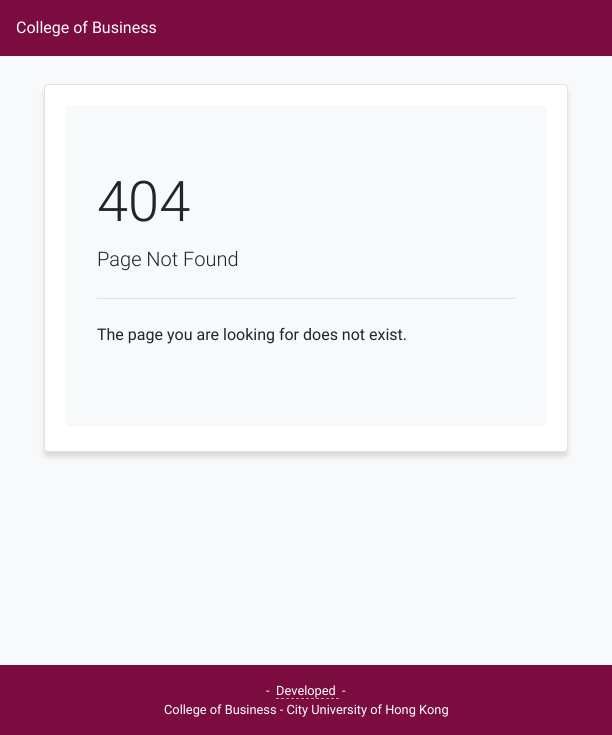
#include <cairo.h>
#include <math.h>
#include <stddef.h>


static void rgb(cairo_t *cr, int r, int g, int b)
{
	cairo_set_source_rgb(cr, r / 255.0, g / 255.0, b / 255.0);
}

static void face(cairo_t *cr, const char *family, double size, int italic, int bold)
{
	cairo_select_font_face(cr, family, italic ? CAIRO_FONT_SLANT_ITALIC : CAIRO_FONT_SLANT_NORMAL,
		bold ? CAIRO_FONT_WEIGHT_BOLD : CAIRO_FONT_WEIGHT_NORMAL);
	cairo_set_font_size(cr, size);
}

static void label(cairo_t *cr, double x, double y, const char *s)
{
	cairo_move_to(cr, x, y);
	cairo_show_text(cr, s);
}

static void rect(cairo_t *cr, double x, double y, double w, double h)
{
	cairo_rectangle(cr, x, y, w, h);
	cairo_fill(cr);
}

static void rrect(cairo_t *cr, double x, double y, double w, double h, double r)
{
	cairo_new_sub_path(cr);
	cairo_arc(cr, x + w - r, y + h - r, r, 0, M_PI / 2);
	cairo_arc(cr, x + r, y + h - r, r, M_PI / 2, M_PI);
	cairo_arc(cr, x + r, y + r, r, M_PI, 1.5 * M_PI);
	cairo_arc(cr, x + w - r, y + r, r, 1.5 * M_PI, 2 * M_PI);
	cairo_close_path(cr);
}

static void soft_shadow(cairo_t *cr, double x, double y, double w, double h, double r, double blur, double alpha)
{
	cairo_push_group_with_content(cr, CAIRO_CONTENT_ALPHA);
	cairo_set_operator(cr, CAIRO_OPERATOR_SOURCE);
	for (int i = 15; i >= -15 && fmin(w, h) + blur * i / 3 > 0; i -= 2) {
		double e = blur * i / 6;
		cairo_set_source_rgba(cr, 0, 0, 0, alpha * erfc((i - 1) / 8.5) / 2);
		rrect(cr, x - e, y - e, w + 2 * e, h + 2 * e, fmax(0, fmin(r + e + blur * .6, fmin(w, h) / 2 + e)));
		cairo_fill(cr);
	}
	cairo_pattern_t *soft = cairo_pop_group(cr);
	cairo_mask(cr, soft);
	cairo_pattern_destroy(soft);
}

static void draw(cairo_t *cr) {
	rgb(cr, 248, 249, 250);
	cairo_paint(cr);
	rgb(cr, 122, 12, 63);
	rect(cr, 0, 0, 612, 56);
	face(cr, "Roboto", 16, 0, 0);
	rgb(cr, 255, 255, 255);
	label(cr, 16, 33, "College of Business");
	rgb(cr, 218, 218, 218);
	soft_shadow(cr, 44, 89, 524, 368, 4, 2.5, 1);
	rgb(cr, 255, 255, 255);
	rrect(cr, 44, 84, 524, 368, 4);
	cairo_fill(cr);
	rrect(cr, 44.5, 84.5, 523, 367, 3.5);
	cairo_set_source_rgba(cr, 0, 0, 0, 0.12);
	cairo_set_line_width(cr, 1);
	cairo_stroke(cr);
	rgb(cr, 248, 249, 250);
	rrect(cr, 65, 105, 482, 322, 5);
	cairo_fill(cr);
	face(cr, "Roboto Light", 56, 0, 0);
	rgb(cr, 33, 37, 41);
	label(cr, 97, 221, "404");
	face(cr, "Roboto Light", 20, 0, 0);
	label(cr, 97, 266, "Page Not Found");
	rgb(cr, 223, 224, 225);
	rect(cr, 97, 298, 418, 1);
	face(cr, "Roboto", 16, 0, 0);
	rgb(cr, 33, 37, 41);
	label(cr, 97, 340, "The page you are looking for does not exist.");
	rgb(cr, 122, 12, 63);
	rect(cr, 0, 665, 612, 70);
	face(cr, "Roboto", 12.8, 0, 0);
	rgb(cr, 255, 255, 255);
	label(cr, 266, 695, "-");
	label(cr, 276, 695, "Developed");
	cairo_new_path(cr);
	cairo_move_to(cr, 276, 698.5);
	cairo_line_to(cr, 339, 698.5);
	rgb(cr, 202, 160, 116);
	cairo_set_dash(cr, (double[]){3, 2}, 2, 0);
	cairo_stroke(cr);
	rgb(cr, 255, 255, 255);
	label(cr, 342, 695, "-");
	label(cr, 164, 714, "College of Business - City University of Hong Kong");
}

int main(void) {
	cairo_surface_t *surface = cairo_image_surface_create(CAIRO_FORMAT_RGB24, 612, 735);
	cairo_t *cr = cairo_create(surface);
	cairo_font_options_t *options = cairo_font_options_create();
	cairo_font_options_set_hint_metrics(options, CAIRO_HINT_METRICS_OFF);
	cairo_font_options_set_hint_style(options, CAIRO_HINT_STYLE_NONE);
	cairo_set_font_options(cr, options);
	cairo_set_miter_limit(cr, 4);
	draw(cr);
	cairo_surface_write_to_png(surface, "render.png");
	cairo_font_options_destroy(options);
	cairo_destroy(cr);
	cairo_surface_destroy(surface);
	return 0;
}
